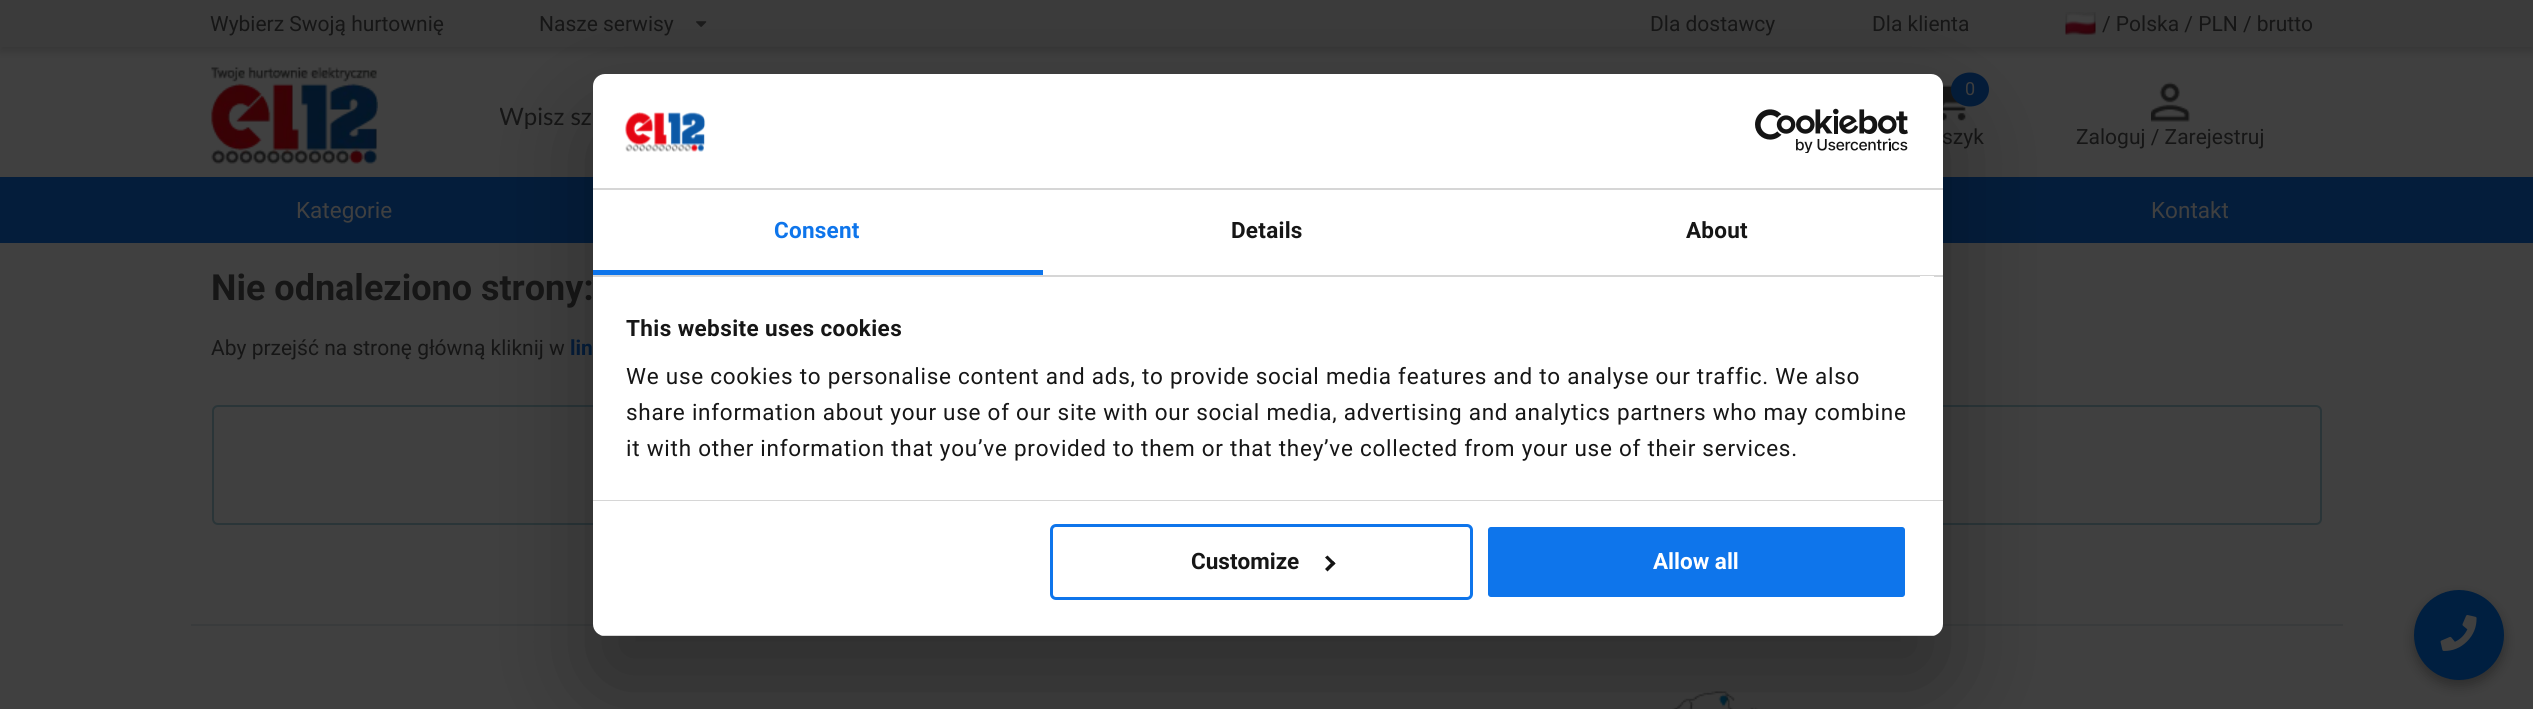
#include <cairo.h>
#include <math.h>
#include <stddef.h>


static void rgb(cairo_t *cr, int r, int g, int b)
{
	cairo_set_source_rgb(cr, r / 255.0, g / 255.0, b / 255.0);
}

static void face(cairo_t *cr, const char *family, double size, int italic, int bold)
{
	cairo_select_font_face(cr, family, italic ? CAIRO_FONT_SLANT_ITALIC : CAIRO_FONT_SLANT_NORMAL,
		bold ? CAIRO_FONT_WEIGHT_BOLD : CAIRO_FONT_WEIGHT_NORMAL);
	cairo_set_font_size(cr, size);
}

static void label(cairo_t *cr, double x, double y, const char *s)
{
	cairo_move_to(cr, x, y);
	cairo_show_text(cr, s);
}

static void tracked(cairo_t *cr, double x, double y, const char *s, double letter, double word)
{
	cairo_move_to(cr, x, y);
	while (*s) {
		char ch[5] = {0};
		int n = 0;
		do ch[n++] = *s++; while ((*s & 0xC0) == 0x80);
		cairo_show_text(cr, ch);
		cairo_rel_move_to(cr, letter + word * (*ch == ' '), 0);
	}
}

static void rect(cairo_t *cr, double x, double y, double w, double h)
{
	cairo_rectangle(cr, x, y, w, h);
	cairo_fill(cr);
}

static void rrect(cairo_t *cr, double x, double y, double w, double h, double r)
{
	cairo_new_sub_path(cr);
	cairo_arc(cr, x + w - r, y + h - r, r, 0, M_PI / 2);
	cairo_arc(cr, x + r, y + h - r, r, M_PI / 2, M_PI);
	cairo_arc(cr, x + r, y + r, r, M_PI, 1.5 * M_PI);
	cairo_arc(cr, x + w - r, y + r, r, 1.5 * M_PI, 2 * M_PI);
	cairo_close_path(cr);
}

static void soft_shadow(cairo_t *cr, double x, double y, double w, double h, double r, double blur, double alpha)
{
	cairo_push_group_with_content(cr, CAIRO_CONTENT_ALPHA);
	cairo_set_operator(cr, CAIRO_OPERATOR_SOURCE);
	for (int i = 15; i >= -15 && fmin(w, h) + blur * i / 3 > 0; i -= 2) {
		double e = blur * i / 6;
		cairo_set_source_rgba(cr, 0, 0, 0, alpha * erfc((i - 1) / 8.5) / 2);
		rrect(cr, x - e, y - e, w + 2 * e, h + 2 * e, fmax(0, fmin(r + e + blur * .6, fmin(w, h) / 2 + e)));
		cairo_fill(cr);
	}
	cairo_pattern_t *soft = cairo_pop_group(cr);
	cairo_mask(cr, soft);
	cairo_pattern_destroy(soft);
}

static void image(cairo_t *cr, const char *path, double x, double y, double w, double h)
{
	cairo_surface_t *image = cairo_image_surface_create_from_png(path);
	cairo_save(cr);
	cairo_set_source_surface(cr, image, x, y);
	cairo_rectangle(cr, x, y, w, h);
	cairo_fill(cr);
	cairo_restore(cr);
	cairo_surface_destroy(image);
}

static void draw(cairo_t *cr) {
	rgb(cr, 64, 64, 64);
	cairo_paint(cr);
	rgb(cr, 0, 0, 0);
	soft_shadow(cr, 0, 5, 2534, 46, 0, 4.5, 0.16);
	rgb(cr, 59, 59, 59);
	rect(cr, 0, 0, 2533, 47);
	face(cr, "Roboto", 21, 0, 0);
	rgb(cr, 22, 22, 22);
	label(cr, 210, 31, "Wybierz Swoją hurtownię");
	label(cr, 539, 31, "Nasze serwisy");
	image(cr, "image0.png", 696, 21, 11, 6);
	label(cr, 1650, 31, "Dla dostawcy");
	label(cr, 1872, 31, "Dla klienta");
	image(cr, "image1.png", 2065, 12, 31, 23);
	label(cr, 2102, 31, "/ Polska / PLN / brutto");
	image(cr, "image2.png", 211, 67, 167, 97);
	cairo_save(cr);
	cairo_rectangle(cr, 500, 101, 978, 28);
	cairo_clip(cr);
	face(cr, "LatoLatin", 24, 0, 0);
	label(cr, 499, 125, "Wpisz sz");
	cairo_restore(cr);
	image(cr, "image3.png", 1942, 85, 24, 36);
	rgb(cr, 4, 29, 59);
	cairo_new_path(cr);
	cairo_move_to(cr, 1970, 72.5);
	cairo_curve_to(cr, 1980.5, 72.5, 1989, 80, 1989, 89.5);
	cairo_curve_to(cr, 1989, 99, 1980.5, 106.5, 1970, 106.5);
	cairo_curve_to(cr, 1959.5, 106.5, 1951, 99, 1951, 89.5);
	cairo_curve_to(cr, 1951, 80, 1959.5, 72.5, 1970, 72.5);
	cairo_close_path(cr);
	cairo_fill(cr);
	face(cr, "Roboto", 18, 0, 0);
	rgb(cr, 64, 64, 64);
	label(cr, 1965, 95, "0");
	face(cr, "Roboto", 21, 0, 0);
	rgb(cr, 22, 22, 22);
	label(cr, 1942, 144, "szyk");
	image(cr, "image4.png", 2151, 82, 39, 40);
	label(cr, 2076, 144, "Zaloguj / Zarejestruj");
	rgb(cr, 4, 29, 59);
	rect(cr, 0, 177, 2533, 66);
	face(cr, "Roboto", 22.5, 0, 0);
	rgb(cr, 64, 64, 64);
	label(cr, 296, 218, "Kategorie");
	label(cr, 2151, 218, "Kontakt");
	face(cr, "Roboto", 36, 0, 1);
	rgb(cr, 22, 22, 22);
	label(cr, 211, 300, "Nie odnaleziono strony:");
	face(cr, "Roboto", 21, 0, 0);
	label(cr, 211, 355, "Aby przejść na stronę główną kliknij w");
	face(cr, "Roboto", 21, 0, 1);
	rgb(cr, 4, 29, 59);
	label(cr, 570, 355, "lin");
	rrect(cr, 213, 406, 2108, 118, 5);
	rgb(cr, 42, 53, 56);
	cairo_stroke(cr);
	rgb(cr, 57, 59, 60);
	rect(cr, 191, 624, 2152, 2);
	image(cr, "image5.png", 1672, 691, 86, 18);
	rgb(cr, 0, 0, 0);
	soft_shadow(cr, 2414, 596, 90, 90, 45, 6, 0.3);
	rgb(cr, 0, 31, 64);
	cairo_arc(cr, 2459, 635, 45, 0, 2 * M_PI);
	cairo_fill(cr);
	image(cr, "image6.png", 2440, 615, 37, 36);
	rgb(cr, 0, 0, 0);
	soft_shadow(cr, 593, 122, 1350, 562, 12, 51, 0.3);
	rgb(cr, 255, 255, 255);
	rrect(cr, 593, 74, 1350, 562, 12);
	cairo_fill(cr);
	rgb(cr, 214, 214, 214);
	rect(cr, 593, 188, 1350, 2);
	image(cr, "image7.png", 625, 112, 81, 40);
	image(cr, "image8.png", 1755, 108, 153, 45);
	rect(cr, 593, 275, 1350, 2);
	rgb(cr, 14, 117, 235);
	rect(cr, 593, 270, 450, 5);
	face(cr, "Roboto", 22.5, 0, 1);
	tracked(cr, 774, 238, "Consent", 0.25, 0);
	rgb(cr, 22, 22, 22);
	tracked(cr, 1231, 238, "Details", 0.25, 0);
	tracked(cr, 1686, 238, "About", 0.25, 0);
	rgb(cr, 214, 214, 214);
	rect(cr, 593, 500, 1350, 1);
	rgb(cr, 255, 255, 255);
	rect(cr, 1920, 276, 14, 1);
	rgb(cr, 22, 22, 22);
	tracked(cr, 626, 336, "This website uses cookies", 0.4, 0);
	face(cr, "Roboto", 22.5, 0, 0);
	tracked(cr, 626, 384, "We use cookies to personalise content and ads, to provide social media features and to analyse our traffic. We also", 0.75, 0);
	tracked(cr, 626, 420, "share information about your use of our site with our social media, advertising and analytics partners who may combine", 0.75, 0);
	tracked(cr, 626, 456, "it with other information that you’ve provided to them or that they’ve collected from your use of their services.", 0.75, 0);
	cairo_save(cr);
	rrect(cr, 593, 74, 1350, 562, 12);
	cairo_clip(cr);
	rgb(cr, 214, 214, 214);
	rect(cr, 593, 635, 1350, 1);
	cairo_restore(cr);
	rrect(cr, 1051.5, 525.5, 420, 73, 4.5);
	rgb(cr, 14, 117, 235);
	cairo_set_line_width(cr, 3);
	cairo_stroke(cr);
	face(cr, "Roboto", 22.5, 0, 1);
	rgb(cr, 22, 22, 22);
	label(cr, 1191, 569, "Customize");
	rgb(cr, 20, 20, 20);
	cairo_new_path(cr);
	cairo_move_to(cr, 1327.5, 555.5);
	cairo_line_to(cr, 1335.5, 563.5);
	cairo_line_to(cr, 1333, 565.5);
	cairo_line_to(cr, 1325, 557.5);
	cairo_close_path(cr);
	cairo_fill(cr);
	cairo_new_path(cr);
	cairo_move_to(cr, 1333, 561);
	cairo_line_to(cr, 1335.5, 563.5);
	cairo_line_to(cr, 1327.5, 571.5);
	cairo_line_to(cr, 1325, 569);
	cairo_close_path(cr);
	cairo_fill(cr);
	rgb(cr, 14, 117, 235);
	rrect(cr, 1486.5, 525.5, 420, 73, 4.5);
	cairo_fill_preserve(cr);
	rgb(cr, 255, 255, 255);
	cairo_stroke(cr);
	label(cr, 1653, 569, "Allow all");
}

int main(void) {
	cairo_surface_t *surface = cairo_image_surface_create(CAIRO_FORMAT_RGB24, 2533, 709);
	cairo_t *cr = cairo_create(surface);
	cairo_font_options_t *options = cairo_font_options_create();
	cairo_font_options_set_hint_metrics(options, CAIRO_HINT_METRICS_OFF);
	cairo_font_options_set_hint_style(options, CAIRO_HINT_STYLE_NONE);
	cairo_set_font_options(cr, options);
	cairo_set_miter_limit(cr, 4);
	draw(cr);
	cairo_surface_write_to_png(surface, "render.png");
	cairo_font_options_destroy(options);
	cairo_destroy(cr);
	cairo_surface_destroy(surface);
	return 0;
}
